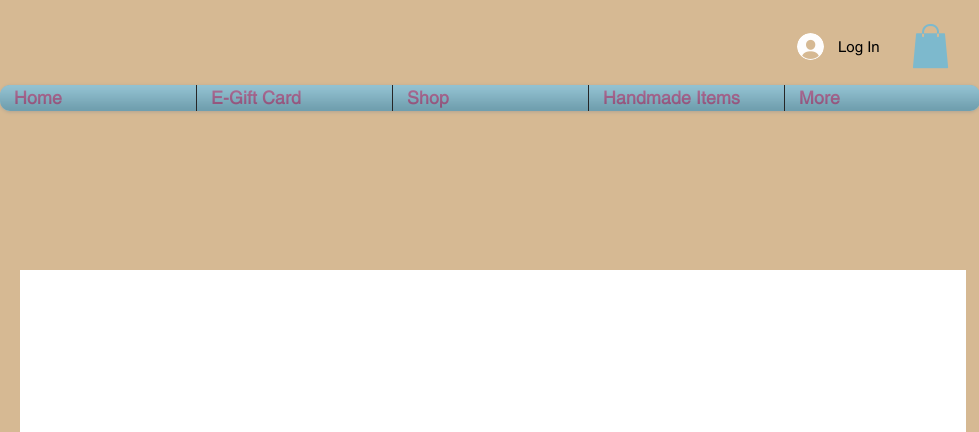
#include <cairo.h>
#include <math.h>
#include <stddef.h>


static void rgb(cairo_t *cr, int r, int g, int b)
{
	cairo_set_source_rgb(cr, r / 255.0, g / 255.0, b / 255.0);
}

static void face(cairo_t *cr, const char *family, double size, int italic, int bold)
{
	cairo_select_font_face(cr, family, italic ? CAIRO_FONT_SLANT_ITALIC : CAIRO_FONT_SLANT_NORMAL,
		bold ? CAIRO_FONT_WEIGHT_BOLD : CAIRO_FONT_WEIGHT_NORMAL);
	cairo_set_font_size(cr, size);
}

static void label(cairo_t *cr, double x, double y, const char *s)
{
	cairo_move_to(cr, x, y);
	cairo_show_text(cr, s);
}

static void rect(cairo_t *cr, double x, double y, double w, double h)
{
	cairo_rectangle(cr, x, y, w, h);
	cairo_fill(cr);
}

static void rrect(cairo_t *cr, double x, double y, double w, double h, double r)
{
	cairo_new_sub_path(cr);
	cairo_arc(cr, x + w - r, y + h - r, r, 0, M_PI / 2);
	cairo_arc(cr, x + r, y + h - r, r, M_PI / 2, M_PI);
	cairo_arc(cr, x + r, y + r, r, M_PI, 1.5 * M_PI);
	cairo_arc(cr, x + w - r, y + r, r, 1.5 * M_PI, 2 * M_PI);
	cairo_close_path(cr);
}

static void soft_shadow(cairo_t *cr, double x, double y, double w, double h, double r, double blur, double alpha)
{
	cairo_push_group_with_content(cr, CAIRO_CONTENT_ALPHA);
	cairo_set_operator(cr, CAIRO_OPERATOR_SOURCE);
	for (int i = 15; i >= -15 && fmin(w, h) + blur * i / 3 > 0; i -= 2) {
		double e = blur * i / 6;
		cairo_set_source_rgba(cr, 0, 0, 0, alpha * erfc((i - 1) / 8.5) / 2);
		rrect(cr, x - e, y - e, w + 2 * e, h + 2 * e, fmax(0, fmin(r + e + blur * .6, fmin(w, h) / 2 + e)));
		cairo_fill(cr);
	}
	cairo_pattern_t *soft = cairo_pop_group(cr);
	cairo_mask(cr, soft);
	cairo_pattern_destroy(soft);
}

static void image(cairo_t *cr, const char *path, double x, double y, double w, double h)
{
	cairo_surface_t *image = cairo_image_surface_create_from_png(path);
	cairo_save(cr);
	cairo_set_source_surface(cr, image, x, y);
	cairo_rectangle(cr, x, y, w, h);
	cairo_fill(cr);
	cairo_restore(cr);
	cairo_surface_destroy(image);
}

static void draw(cairo_t *cr) {
	rgb(cr, 214, 185, 147);
	cairo_paint(cr);
	image(cr, "image0.png", 797, 33, 27, 27);
	face(cr, "helvetica", 15, 0, 0);
	rgb(cr, 0, 0, 0);
	label(cr, 838, 52, "Log In");
	image(cr, "image1.png", 913, 24, 36, 45);
	rgb(cr, 148, 147, 143);
	soft_shadow(cr, 0, 86, 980, 26, 10, 2, 0.6);
	image(cr, "image2.png", 0, 85, 979, 26);
	image(cr, "image3.png", 0, 90, 979, 21);
	rgb(cr, 125, 185, 205);
	cairo_new_path(cr);
	cairo_move_to(cr, 10, 85);
	cairo_line_to(cr, 196, 85);
	cairo_line_to(cr, 196, 111);
	cairo_line_to(cr, 10, 111);
	cairo_curve_to(cr, 4.5, 111, 0, 106.5, 0, 101);
	cairo_line_to(cr, 0, 95);
	cairo_curve_to(cr, 0, 89.5, 4.5, 85, 10, 85);
	cairo_close_path(cr);
	cairo_fill(cr);
	face(cr, "helvetica", 18, 0, 1);
	rgb(cr, 160, 80, 131);
	label(cr, 14, 104, "Home");
	image(cr, "image4.png", 0, 85, 196, 26);
	image(cr, "image5.png", 0, 85, 196, 26);
	rgb(cr, 125, 185, 205);
	rect(cr, 197, 85, 195, 26);
	rgb(cr, 38, 38, 38);
	rect(cr, 196, 85, 1, 26);
	rgb(cr, 160, 80, 131);
	label(cr, 211, 104, "E-Gift Card");
	image(cr, "image6.png", 197, 85, 195, 26);
	image(cr, "image7.png", 197, 85, 195, 26);
	rgb(cr, 125, 185, 205);
	rect(cr, 393, 85, 195, 26);
	rgb(cr, 38, 38, 38);
	rect(cr, 392, 85, 1, 26);
	rgb(cr, 160, 80, 131);
	label(cr, 407, 104, "Shop");
	image(cr, "image8.png", 393, 85, 195, 26);
	image(cr, "image9.png", 393, 85, 195, 26);
	rgb(cr, 125, 185, 205);
	rect(cr, 589, 85, 195, 26);
	rgb(cr, 38, 38, 38);
	rect(cr, 588, 85, 1, 26);
	rgb(cr, 160, 80, 131);
	label(cr, 603, 104, "Handmade Items");
	image(cr, "image10.png", 589, 85, 195, 26);
	image(cr, "image11.png", 589, 85, 195, 26);
	rgb(cr, 125, 185, 205);
	cairo_new_path(cr);
	cairo_move_to(cr, 784, 85);
	cairo_line_to(cr, 970, 85);
	cairo_curve_to(cr, 975.5, 85, 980, 89.5, 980, 95);
	cairo_line_to(cr, 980, 101);
	cairo_curve_to(cr, 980, 106.5, 975.5, 111, 970, 111);
	cairo_line_to(cr, 784, 111);
	cairo_close_path(cr);
	cairo_fill(cr);
	rgb(cr, 38, 38, 38);
	rect(cr, 784, 85, 1, 26);
	rgb(cr, 160, 80, 131);
	label(cr, 799, 104, "More");
	image(cr, "image12.png", 785, 85, 194, 26);
	image(cr, "image13.png", 785, 85, 194, 26);
	rgb(cr, 255, 255, 255);
	rect(cr, 20, 270, 946, 162);
}

int main(void) {
	cairo_surface_t *surface = cairo_image_surface_create(CAIRO_FORMAT_RGB24, 979, 432);
	cairo_t *cr = cairo_create(surface);
	cairo_font_options_t *options = cairo_font_options_create();
	cairo_font_options_set_hint_metrics(options, CAIRO_HINT_METRICS_OFF);
	cairo_font_options_set_hint_style(options, CAIRO_HINT_STYLE_NONE);
	cairo_set_font_options(cr, options);
	cairo_set_miter_limit(cr, 4);
	draw(cr);
	cairo_surface_write_to_png(surface, "render.png");
	cairo_font_options_destroy(options);
	cairo_destroy(cr);
	cairo_surface_destroy(surface);
	return 0;
}
